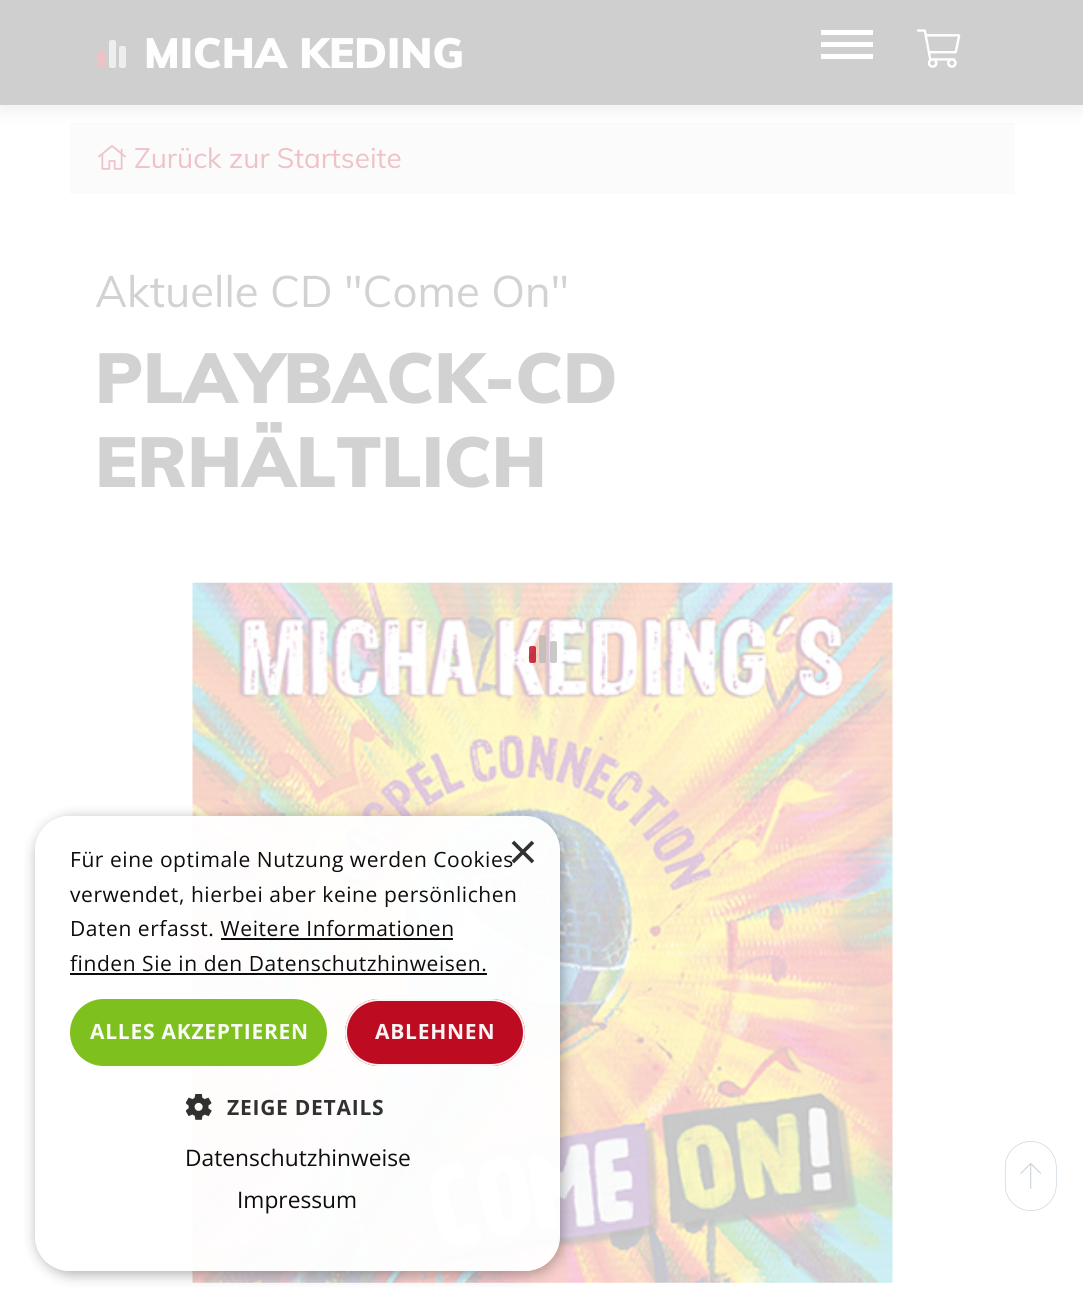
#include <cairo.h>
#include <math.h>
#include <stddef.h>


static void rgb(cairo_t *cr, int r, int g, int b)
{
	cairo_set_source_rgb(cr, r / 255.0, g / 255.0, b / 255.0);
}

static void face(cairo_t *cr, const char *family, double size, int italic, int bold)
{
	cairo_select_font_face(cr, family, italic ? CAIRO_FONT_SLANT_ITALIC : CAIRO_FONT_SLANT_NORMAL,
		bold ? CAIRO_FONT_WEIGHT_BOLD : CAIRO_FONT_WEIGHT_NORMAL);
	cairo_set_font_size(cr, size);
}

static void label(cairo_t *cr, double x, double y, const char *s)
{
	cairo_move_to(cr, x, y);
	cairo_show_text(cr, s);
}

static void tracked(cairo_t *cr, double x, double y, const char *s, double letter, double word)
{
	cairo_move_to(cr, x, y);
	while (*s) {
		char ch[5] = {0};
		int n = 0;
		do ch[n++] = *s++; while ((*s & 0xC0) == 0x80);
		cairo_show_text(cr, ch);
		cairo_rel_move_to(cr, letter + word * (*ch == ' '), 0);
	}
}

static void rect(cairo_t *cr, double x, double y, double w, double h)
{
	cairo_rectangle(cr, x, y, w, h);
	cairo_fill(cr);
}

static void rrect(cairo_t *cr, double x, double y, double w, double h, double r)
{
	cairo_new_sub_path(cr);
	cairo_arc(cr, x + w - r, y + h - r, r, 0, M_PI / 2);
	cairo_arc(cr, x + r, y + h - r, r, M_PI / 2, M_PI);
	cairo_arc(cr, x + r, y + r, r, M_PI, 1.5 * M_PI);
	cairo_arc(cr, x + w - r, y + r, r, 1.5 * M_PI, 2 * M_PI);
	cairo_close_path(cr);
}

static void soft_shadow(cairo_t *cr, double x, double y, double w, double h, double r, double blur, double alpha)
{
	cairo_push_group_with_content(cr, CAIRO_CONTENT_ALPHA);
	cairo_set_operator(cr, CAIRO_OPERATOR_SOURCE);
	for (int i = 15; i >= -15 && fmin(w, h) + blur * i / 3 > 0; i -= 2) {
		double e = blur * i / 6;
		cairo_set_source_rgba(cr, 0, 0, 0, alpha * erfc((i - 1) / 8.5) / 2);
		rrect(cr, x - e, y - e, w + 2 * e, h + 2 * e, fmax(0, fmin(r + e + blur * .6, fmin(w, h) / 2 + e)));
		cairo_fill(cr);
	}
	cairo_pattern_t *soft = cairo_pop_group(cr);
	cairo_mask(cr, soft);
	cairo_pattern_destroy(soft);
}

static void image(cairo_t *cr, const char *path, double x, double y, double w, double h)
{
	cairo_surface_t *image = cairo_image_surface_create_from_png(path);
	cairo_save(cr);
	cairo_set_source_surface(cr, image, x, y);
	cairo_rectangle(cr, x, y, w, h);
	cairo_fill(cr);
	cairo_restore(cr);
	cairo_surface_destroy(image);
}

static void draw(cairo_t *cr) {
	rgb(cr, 255, 255, 255);
	cairo_paint(cr);
	rgb(cr, 251, 251, 251);
	rect(cr, 70, 123, 945, 71);
	rgb(cr, 194, 194, 194);
	soft_shadow(cr, 0, 4, 1083, 105, 0, 9, 0.3);
	rgb(cr, 207, 207, 207);
	rect(cr, 0, 0, 1083, 105);
	rgb(cr, 238, 194, 199);
	rrect(cr, 98, 51, 7, 17, 2);
	cairo_fill(cr);
	rgb(cr, 238, 238, 238);
	rrect(cr, 109, 40, 7, 28, 2);
	cairo_fill(cr);
	rrect(cr, 119, 46, 7, 22, 2);
	cairo_fill(cr);
	face(cr, "Muli Black", 42, 0, 0);
	rgb(cr, 254, 254, 254);
	label(cr, 144, 68, "MICHA KEDING");
	rgb(cr, 255, 255, 255);
	rect(cr, 821, 30, 52, 5);
	rect(cr, 821, 42, 52, 5);
	rect(cr, 821, 54, 52, 5);
	image(cr, "image0.png", 917, 29, 44, 39);
	image(cr, "image1.png", 98, 145, 28, 25);
	face(cr, "Muli", 28, 0, 0);
	rgb(cr, 238, 194, 199);
	label(cr, 134, 168, "Zurück zur Startseite");
	face(cr, "Muli", 43.75, 0, 0);
	rgb(cr, 210, 210, 210);
	label(cr, 95, 307, "Aktuelle CD \"Come On\"");
	face(cr, "Muli Black", 70, 0, 0);
	label(cr, 95, 403, "PLAYBACK-CD");
	label(cr, 95, 487, "ERHÄLTLICH");
	image(cr, "image2.png", 192, 582, 701, 701);
	cairo_set_source_rgba(cr, 0.729, 0, 0.09, 0.76);
	rrect(cr, 529, 646, 7, 17, 2);
	cairo_fill(cr);
	cairo_set_source_rgba(cr, 0.722, 0.722, 0.722, 0.76);
	rrect(cr, 539, 635, 7, 28, 2);
	cairo_fill(cr);
	rrect(cr, 550, 641, 7, 22, 2);
	cairo_fill(cr);
	cairo_save(cr);
	cairo_set_fill_rule(cr, CAIRO_FILL_RULE_EVEN_ODD);
	cairo_new_path(cr);
	cairo_move_to(cr, 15, 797);
	cairo_line_to(cr, 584, 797);
	cairo_line_to(cr, 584, 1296);
	cairo_line_to(cr, 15, 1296);
	cairo_close_path(cr);
	cairo_move_to(cr, 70, 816);
	cairo_line_to(cr, 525, 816);
	cairo_curve_to(cr, 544.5, 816, 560, 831.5, 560, 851);
	cairo_line_to(cr, 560, 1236);
	cairo_curve_to(cr, 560, 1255.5, 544.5, 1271, 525, 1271);
	cairo_line_to(cr, 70, 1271);
	cairo_curve_to(cr, 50.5, 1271, 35, 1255.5, 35, 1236);
	cairo_line_to(cr, 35, 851);
	cairo_curve_to(cr, 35, 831.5, 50.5, 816, 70, 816);
	cairo_close_path(cr);
	cairo_clip(cr);
	rgb(cr, 0, 0, 0);
	soft_shadow(cr, 37, 819, 525, 455, 35, 7, 0.33);
	cairo_restore(cr);
	cairo_set_source_rgba(cr, 1, 1, 1, 0.95);
	rrect(cr, 35, 816, 525, 455, 35);
	cairo_fill(cr);
	face(cr, "Open Sans", 21, 0, 0);
	rgb(cr, 13, 13, 13);
	tracked(cr, 70, 867, "Für eine optimale Nutzung werden Cookies", 0.55, 0);
	tracked(cr, 70, 902, "verwendet, hierbei aber keine persönlichen", 0.55, 0);
	tracked(cr, 70, 936, "Daten erfasst. Weitere Informationen", 0.55, 0);
	tracked(cr, 70, 971, "finden Sie in den Datenschutzhinweisen.", 0.55, 0);
	cairo_set_source_rgba(cr, 0, 0, 0, 0.95);
	rect(cr, 221, 938, 232, 2);
	rect(cr, 70, 973, 417, 2);
	face(cr, "Liberation Sans", 51, 0, 0);
	rgb(cr, 49, 49, 49);
	label(cr, 508, 869, "×");
	cairo_set_source_rgba(cr, 0.471, 0.745, 0.078, 0.95);
	rrect(cr, 70, 999, 257, 67, 33.5);
	cairo_fill(cr);
	face(cr, "Open Sans", 21, 0, 1);
	rgb(cr, 249, 252, 244);
	tracked(cr, 90, 1039, "ALLES AKZEPTIEREN", 0.75, 0);
	cairo_set_source_rgba(cr, 0.729, 0, 0.09, 0.95);
	rrect(cr, 345, 999, 180, 67, 33.5);
	cairo_fill(cr);
	rrect(cr, 346, 1000, 178, 65, 32.5);
	cairo_set_source_rgba(cr, 1, 1, 1, 0.95);
	cairo_stroke(cr);
	rgb(cr, 252, 243, 244);
	tracked(cr, 375, 1039, "ABLEHNEN", 0.75, 0);
	image(cr, "image3.png", 186, 1094, 26, 26);
	rgb(cr, 49, 49, 49);
	tracked(cr, 227, 1115, "ZEIGE DETAILS", 0.75, 0);
	face(cr, "Open Sans", 22.75, 0, 0);
	rgb(cr, 13, 13, 13);
	label(cr, 185, 1166, "Datenschutzhinweise");
	label(cr, 237, 1208, "Impressum");
	image(cr, "image4.png", 1004, 1141, 53, 70);
}

int main(void) {
	cairo_surface_t *surface = cairo_image_surface_create(CAIRO_FORMAT_RGB24, 1083, 1304);
	cairo_t *cr = cairo_create(surface);
	cairo_font_options_t *options = cairo_font_options_create();
	cairo_font_options_set_hint_metrics(options, CAIRO_HINT_METRICS_OFF);
	cairo_font_options_set_hint_style(options, CAIRO_HINT_STYLE_NONE);
	cairo_set_font_options(cr, options);
	cairo_set_miter_limit(cr, 4);
	draw(cr);
	cairo_surface_write_to_png(surface, "render.png");
	cairo_font_options_destroy(options);
	cairo_destroy(cr);
	cairo_surface_destroy(surface);
	return 0;
}
